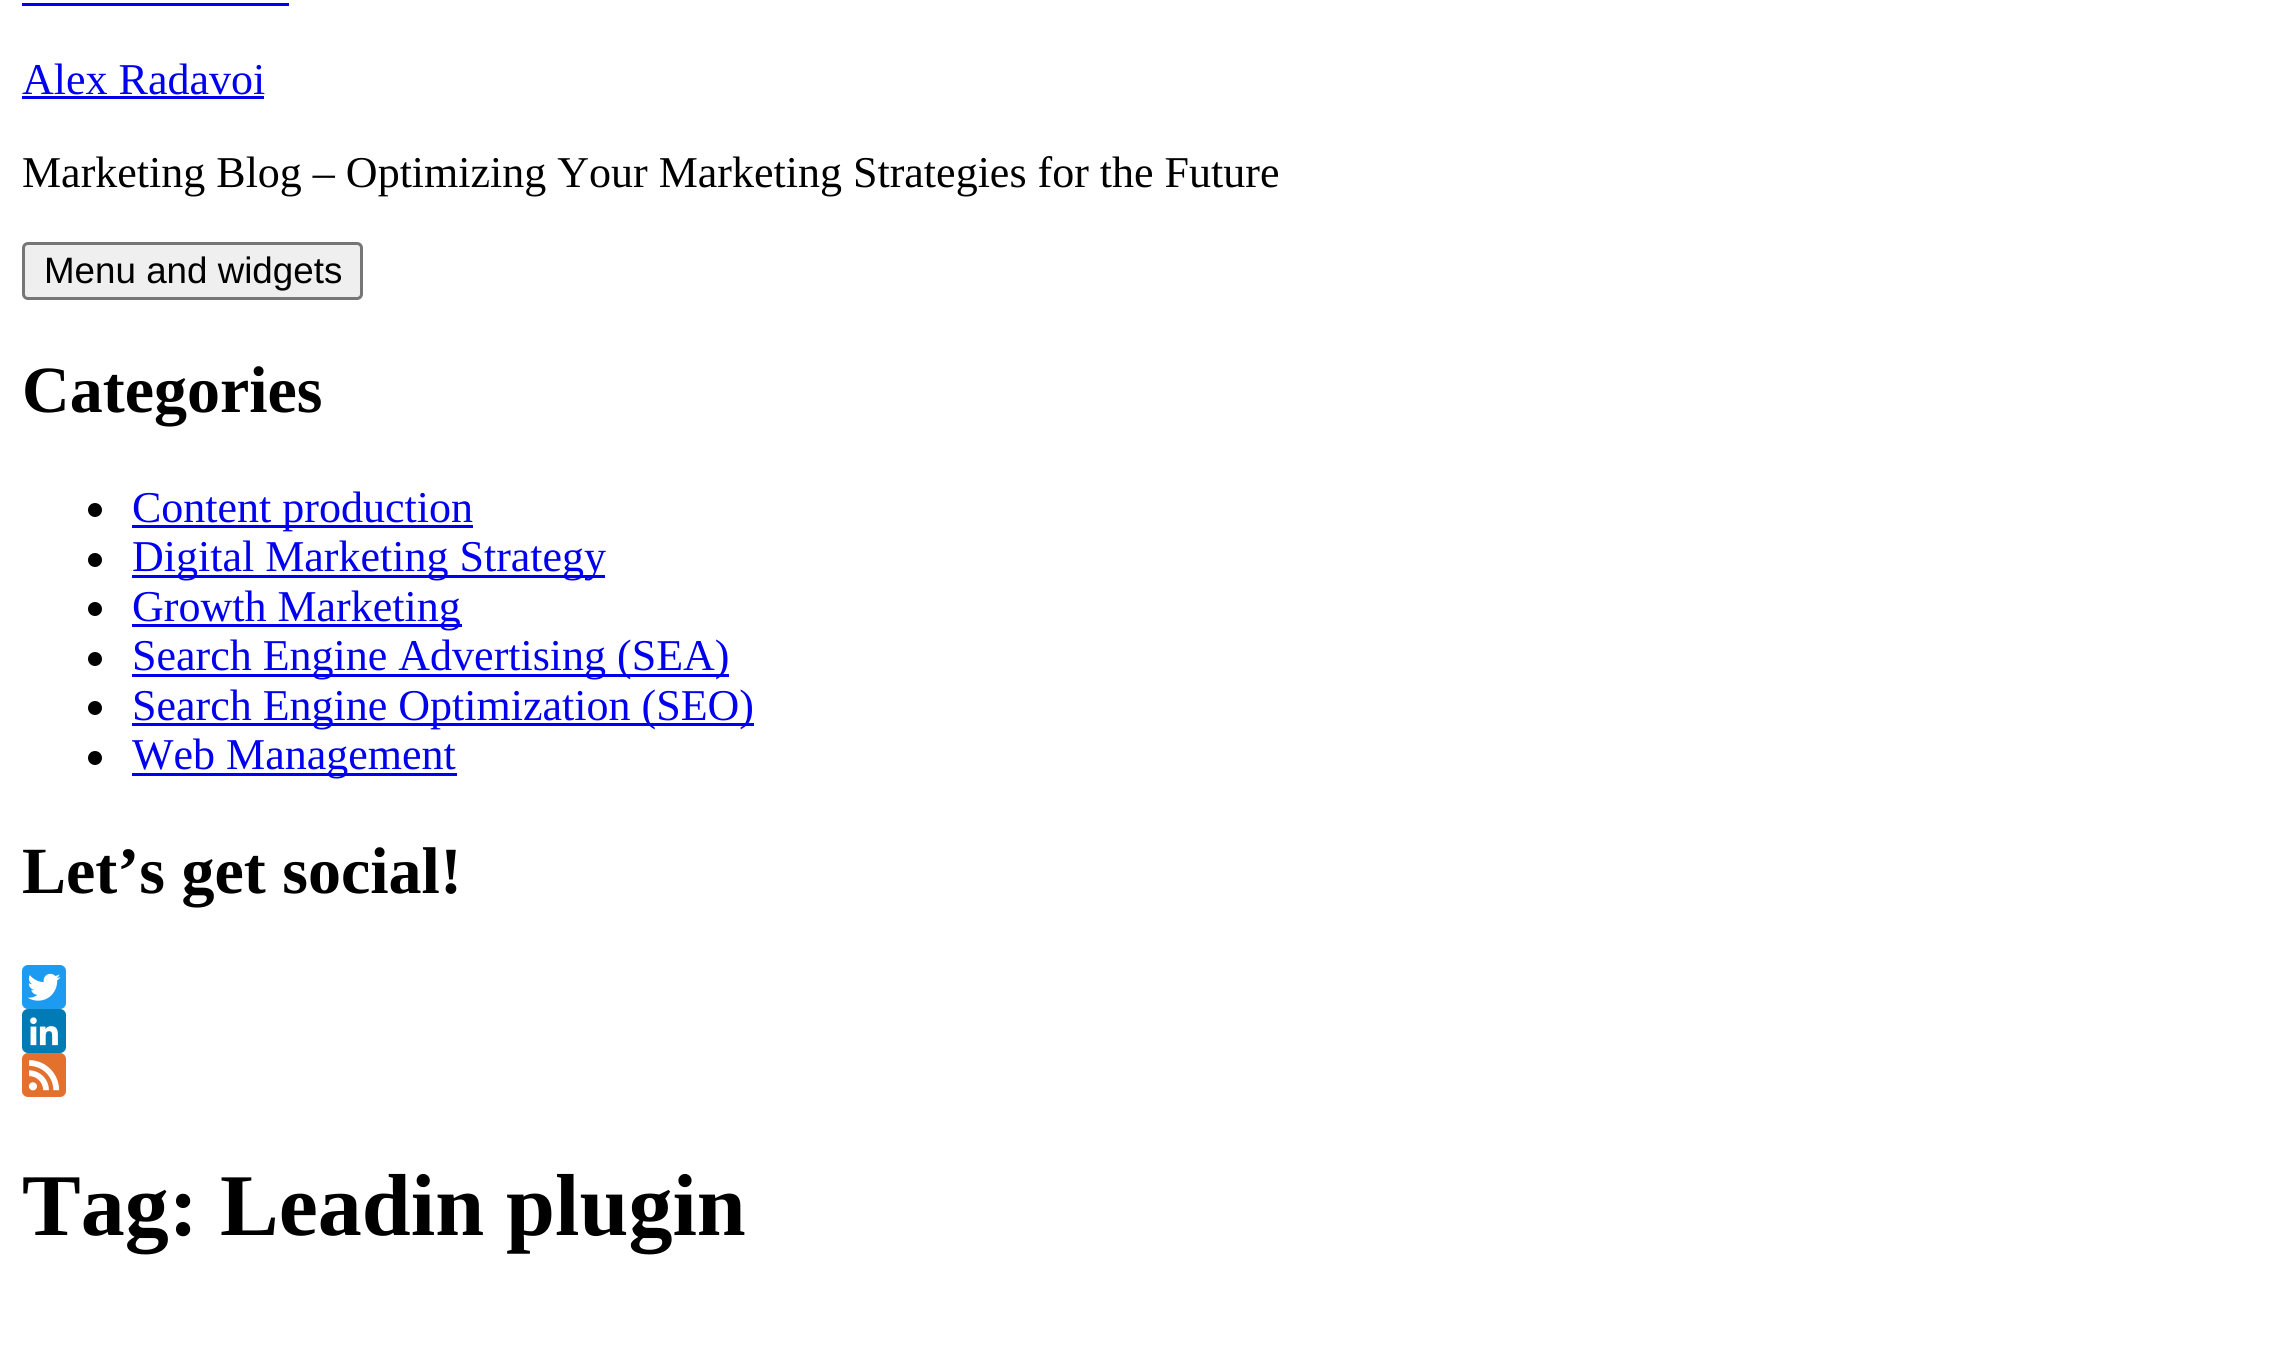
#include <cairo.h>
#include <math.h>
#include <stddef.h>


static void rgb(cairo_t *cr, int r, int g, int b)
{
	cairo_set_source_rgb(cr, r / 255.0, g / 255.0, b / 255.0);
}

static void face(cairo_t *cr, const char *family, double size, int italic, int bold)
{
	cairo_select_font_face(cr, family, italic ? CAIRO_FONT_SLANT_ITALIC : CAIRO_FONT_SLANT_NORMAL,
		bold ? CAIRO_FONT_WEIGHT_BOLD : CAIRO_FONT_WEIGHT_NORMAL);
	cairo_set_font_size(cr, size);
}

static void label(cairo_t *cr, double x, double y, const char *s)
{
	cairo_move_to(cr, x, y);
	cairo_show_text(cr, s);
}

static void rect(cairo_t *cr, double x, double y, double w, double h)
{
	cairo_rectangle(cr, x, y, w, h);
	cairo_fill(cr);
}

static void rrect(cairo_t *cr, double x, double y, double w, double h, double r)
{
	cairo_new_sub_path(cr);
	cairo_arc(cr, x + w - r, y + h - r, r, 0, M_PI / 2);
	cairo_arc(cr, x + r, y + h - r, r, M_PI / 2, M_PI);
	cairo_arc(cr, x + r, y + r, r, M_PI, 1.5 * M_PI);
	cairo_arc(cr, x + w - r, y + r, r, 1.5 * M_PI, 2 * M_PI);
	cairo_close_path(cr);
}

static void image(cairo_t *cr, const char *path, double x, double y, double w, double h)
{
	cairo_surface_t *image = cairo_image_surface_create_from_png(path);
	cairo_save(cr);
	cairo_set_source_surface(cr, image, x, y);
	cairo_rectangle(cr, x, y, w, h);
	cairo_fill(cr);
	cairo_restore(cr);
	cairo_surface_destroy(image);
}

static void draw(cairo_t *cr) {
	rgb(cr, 255, 255, 255);
	cairo_paint(cr);
	rgb(cr, 0, 0, 238);
	rect(cr, 22, 3, 267, 3);
	face(cr, "Liberation Serif", 44, 0, 0);
	label(cr, 22, 94, "Alex Radavoi");
	rect(cr, 22, 96, 242, 3);
	rgb(cr, 0, 0, 0);
	label(cr, 22, 187, "Marketing Blog – Optimizing Your Marketing Strategies for the Future");
	rgb(cr, 239, 239, 239);
	rrect(cr, 23.5, 243.5, 338, 55, 4.5);
	cairo_fill_preserve(cr);
	rgb(cr, 118, 118, 118);
	cairo_set_line_width(cr, 3);
	cairo_stroke(cr);
	face(cr, "Liberation Sans", 36.75, 0, 0);
	rgb(cr, 0, 0, 0);
	label(cr, 44, 283, "Menu and widgets");
	face(cr, "Liberation Serif", 66, 0, 1);
	label(cr, 22, 412, "Categories");
	cairo_new_path(cr);
	cairo_arc(cr, 95, 510, 7, 0, 2 * M_PI);
	cairo_fill(cr);
	rgb(cr, 0, 0, 238);
	rect(cr, 132, 525, 341, 3);
	face(cr, "Liberation Serif", 44, 0, 0);
	label(cr, 132, 522, "Content production");
	rgb(cr, 0, 0, 0);
	cairo_new_path(cr);
	cairo_arc(cr, 95, 560, 7, 0, 2 * M_PI);
	cairo_fill(cr);
	rgb(cr, 0, 0, 238);
	rect(cr, 132, 575, 473, 3);
	label(cr, 132, 571, "Digital Marketing Strategy");
	rgb(cr, 0, 0, 0);
	cairo_new_path(cr);
	cairo_arc(cr, 95, 609, 7, 0, 2 * M_PI);
	cairo_fill(cr);
	rgb(cr, 0, 0, 238);
	rect(cr, 132, 624, 330, 3);
	label(cr, 132, 621, "Growth Marketing");
	rgb(cr, 0, 0, 0);
	cairo_new_path(cr);
	cairo_arc(cr, 95, 659, 7, 0, 2 * M_PI);
	cairo_fill(cr);
	rgb(cr, 0, 0, 238);
	rect(cr, 132, 674, 597, 3);
	label(cr, 132, 670, "Search Engine Advertising (SEA)");
	rgb(cr, 0, 0, 0);
	cairo_new_path(cr);
	cairo_arc(cr, 95, 708, 7, 0, 2 * M_PI);
	cairo_fill(cr);
	rgb(cr, 0, 0, 238);
	rect(cr, 132, 723, 622, 3);
	label(cr, 132, 720, "Search Engine Optimization (SEO)");
	rgb(cr, 0, 0, 0);
	cairo_new_path(cr);
	cairo_arc(cr, 95, 758, 7, 0, 2 * M_PI);
	cairo_fill(cr);
	rgb(cr, 0, 0, 238);
	rect(cr, 132, 773, 325, 3);
	label(cr, 132, 769, "Web Management");
	face(cr, "Liberation Serif", 66, 0, 1);
	rgb(cr, 0, 0, 0);
	label(cr, 22, 893, "Let’s get social!");
	rgb(cr, 29, 155, 240);
	rrect(cr, 22, 965, 44, 44, 6);
	cairo_fill(cr);
	image(cr, "image0.png", 27, 973, 34, 28);
	rgb(cr, 0, 123, 181);
	rrect(cr, 22, 1009, 44, 44, 6);
	cairo_fill(cr);
	image(cr, "image1.png", 30, 1017, 28, 29);
	rgb(cr, 227, 112, 45);
	rrect(cr, 22, 1053, 44, 44, 6);
	cairo_fill(cr);
	image(cr, "image2.png", 28, 1060, 32, 31);
	face(cr, "Liberation Serif", 88, 0, 1);
	rgb(cr, 0, 0, 0);
	label(cr, 22, 1235, "Tag: Leadin plugin");
}

int main(void) {
	cairo_surface_t *surface = cairo_image_surface_create(CAIRO_FORMAT_RGB24, 2295, 1351);
	cairo_t *cr = cairo_create(surface);
	cairo_font_options_t *options = cairo_font_options_create();
	cairo_font_options_set_hint_metrics(options, CAIRO_HINT_METRICS_OFF);
	cairo_font_options_set_hint_style(options, CAIRO_HINT_STYLE_NONE);
	cairo_set_font_options(cr, options);
	cairo_set_miter_limit(cr, 4);
	draw(cr);
	cairo_surface_write_to_png(surface, "render.png");
	cairo_font_options_destroy(options);
	cairo_destroy(cr);
	cairo_surface_destroy(surface);
	return 0;
}
